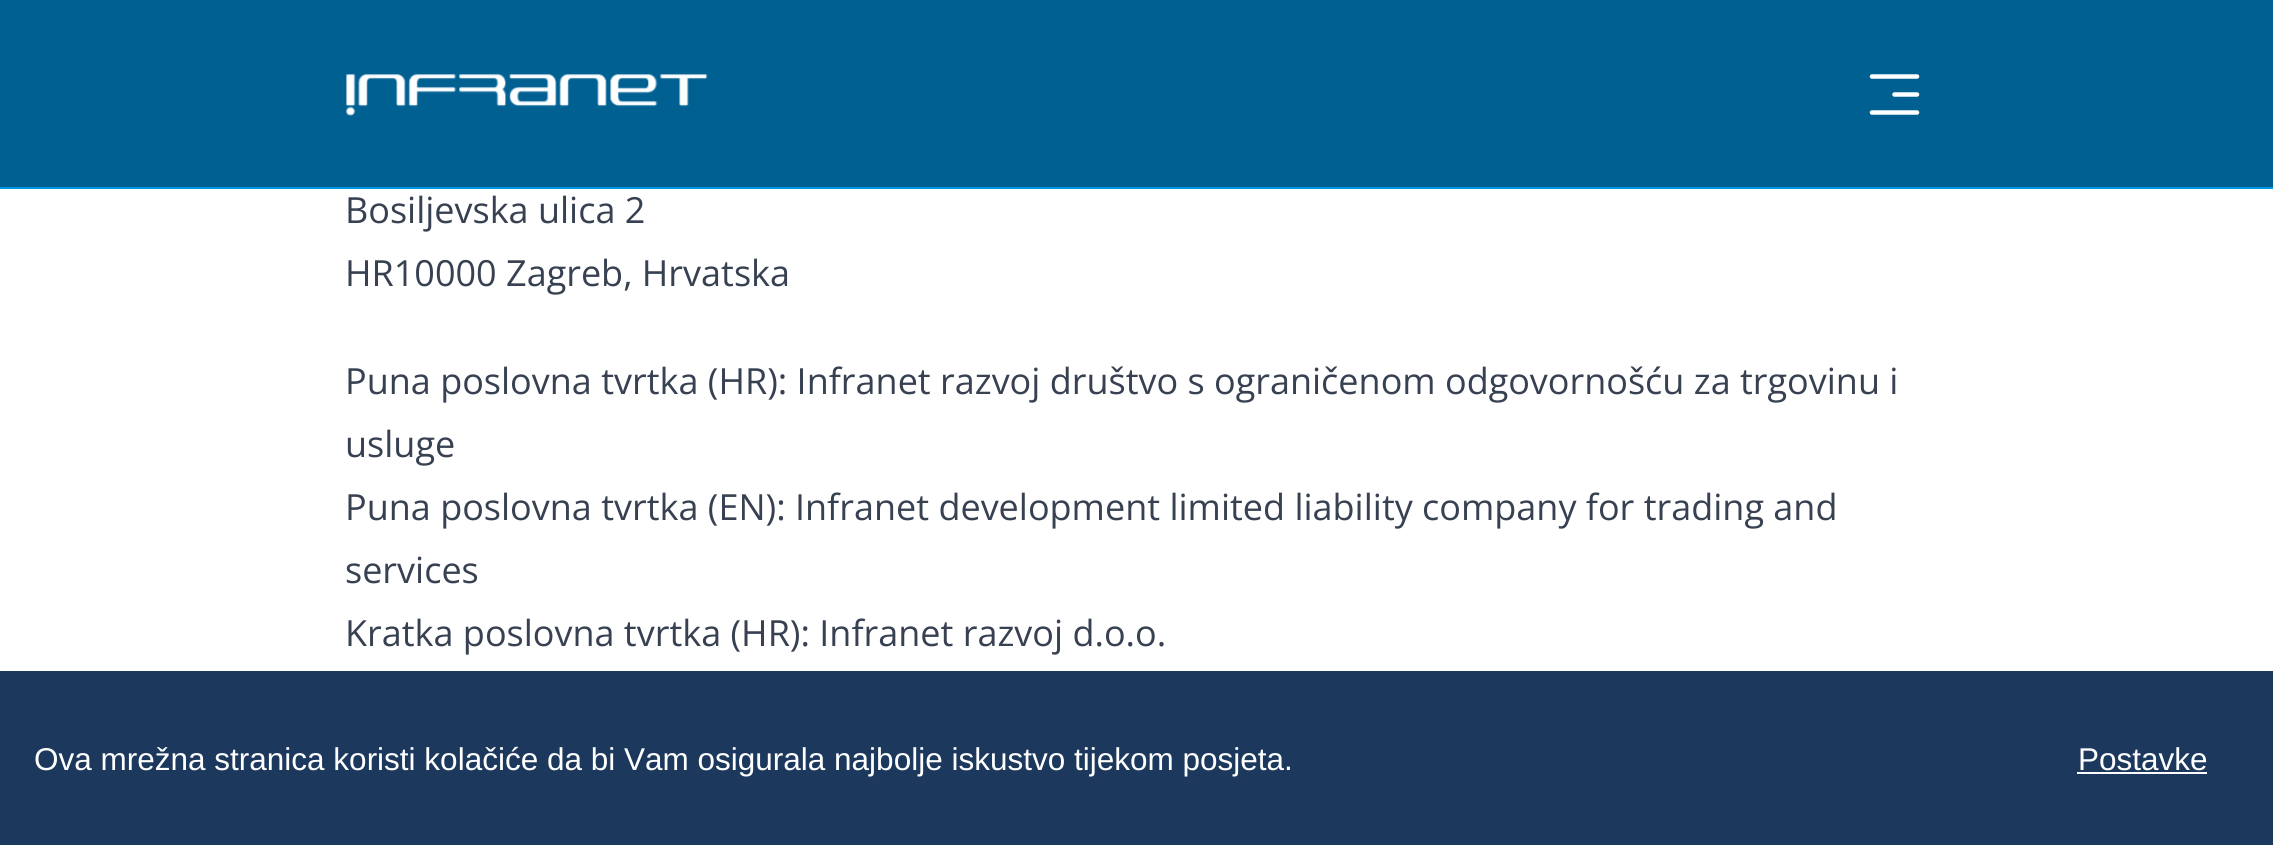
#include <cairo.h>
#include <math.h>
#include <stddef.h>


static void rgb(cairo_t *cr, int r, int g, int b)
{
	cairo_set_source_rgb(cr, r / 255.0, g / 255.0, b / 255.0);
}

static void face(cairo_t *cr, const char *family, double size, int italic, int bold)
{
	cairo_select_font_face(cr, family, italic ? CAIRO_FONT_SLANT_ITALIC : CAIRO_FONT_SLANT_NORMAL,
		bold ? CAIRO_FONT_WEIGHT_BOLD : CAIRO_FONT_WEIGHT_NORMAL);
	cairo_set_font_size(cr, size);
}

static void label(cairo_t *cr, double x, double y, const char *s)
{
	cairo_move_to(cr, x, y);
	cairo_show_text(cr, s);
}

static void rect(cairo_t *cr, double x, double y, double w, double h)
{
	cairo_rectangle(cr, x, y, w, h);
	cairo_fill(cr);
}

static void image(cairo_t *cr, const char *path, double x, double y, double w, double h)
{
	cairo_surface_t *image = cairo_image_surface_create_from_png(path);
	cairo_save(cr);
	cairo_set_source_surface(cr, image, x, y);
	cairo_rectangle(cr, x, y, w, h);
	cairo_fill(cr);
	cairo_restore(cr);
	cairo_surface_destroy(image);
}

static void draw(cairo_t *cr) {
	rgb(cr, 255, 255, 255);
	cairo_paint(cr);
	rgb(cr, 0, 96, 146);
	rect(cr, 0, 0, 2273, 187);
	image(cr, "image0.png", 346, 74, 362, 42);
	cairo_new_path(cr);
	cairo_move_to(cr, 1894.5, 94.5);
	cairo_line_to(cr, 1917, 94.5);
	cairo_move_to(cr, 1872, 76.5);
	cairo_line_to(cr, 1917, 76.5);
	cairo_move_to(cr, 1872, 112.5);
	cairo_line_to(cr, 1917, 112.5);
	rgb(cr, 255, 255, 255);
	cairo_set_line_width(cr, 4.5);
	cairo_set_line_cap(cr, CAIRO_LINE_CAP_ROUND);
	cairo_stroke(cr);
	rgb(cr, 0, 149, 229);
	rect(cr, 0, 187, 2273, 2);
	face(cr, "Open Sans", 36, 0, 0);
	rgb(cr, 55, 65, 81);
	label(cr, 345, 223, "Bosiljevska ulica 2");
	label(cr, 345, 286, "HR10000 Zagreb, Hrvatska");
	label(cr, 345, 394, "Puna poslovna tvrtka (HR): Infranet razvoj društvo s ograničenom odgovornošću za trgovinu i");
	label(cr, 345, 457, "usluge");
	label(cr, 345, 520, "Puna poslovna tvrtka (EN): Infranet development limited liability company for trading and");
	label(cr, 345, 583, "services");
	label(cr, 345, 646, "Kratka poslovna tvrtka (HR): Infranet razvoj d.o.o.");
	rgb(cr, 28, 57, 93);
	rect(cr, 0, 671, 2273, 174);
	face(cr, "Liberation Sans", 31.5, 0, 0);
	rgb(cr, 255, 255, 255);
	label(cr, 34, 770, "Ova mrežna stranica koristi kolačiće da bi Vam osigurala najbolje iskustvo tijekom posjeta.");
	label(cr, 2078, 770, "Postavke");
	rect(cr, 2077, 772, 130, 2);
}

int main(void) {
	cairo_surface_t *surface = cairo_image_surface_create(CAIRO_FORMAT_RGB24, 2273, 845);
	cairo_t *cr = cairo_create(surface);
	cairo_font_options_t *options = cairo_font_options_create();
	cairo_font_options_set_hint_metrics(options, CAIRO_HINT_METRICS_OFF);
	cairo_font_options_set_hint_style(options, CAIRO_HINT_STYLE_NONE);
	cairo_set_font_options(cr, options);
	cairo_set_miter_limit(cr, 4);
	draw(cr);
	cairo_surface_write_to_png(surface, "render.png");
	cairo_font_options_destroy(options);
	cairo_destroy(cr);
	cairo_surface_destroy(surface);
	return 0;
}
